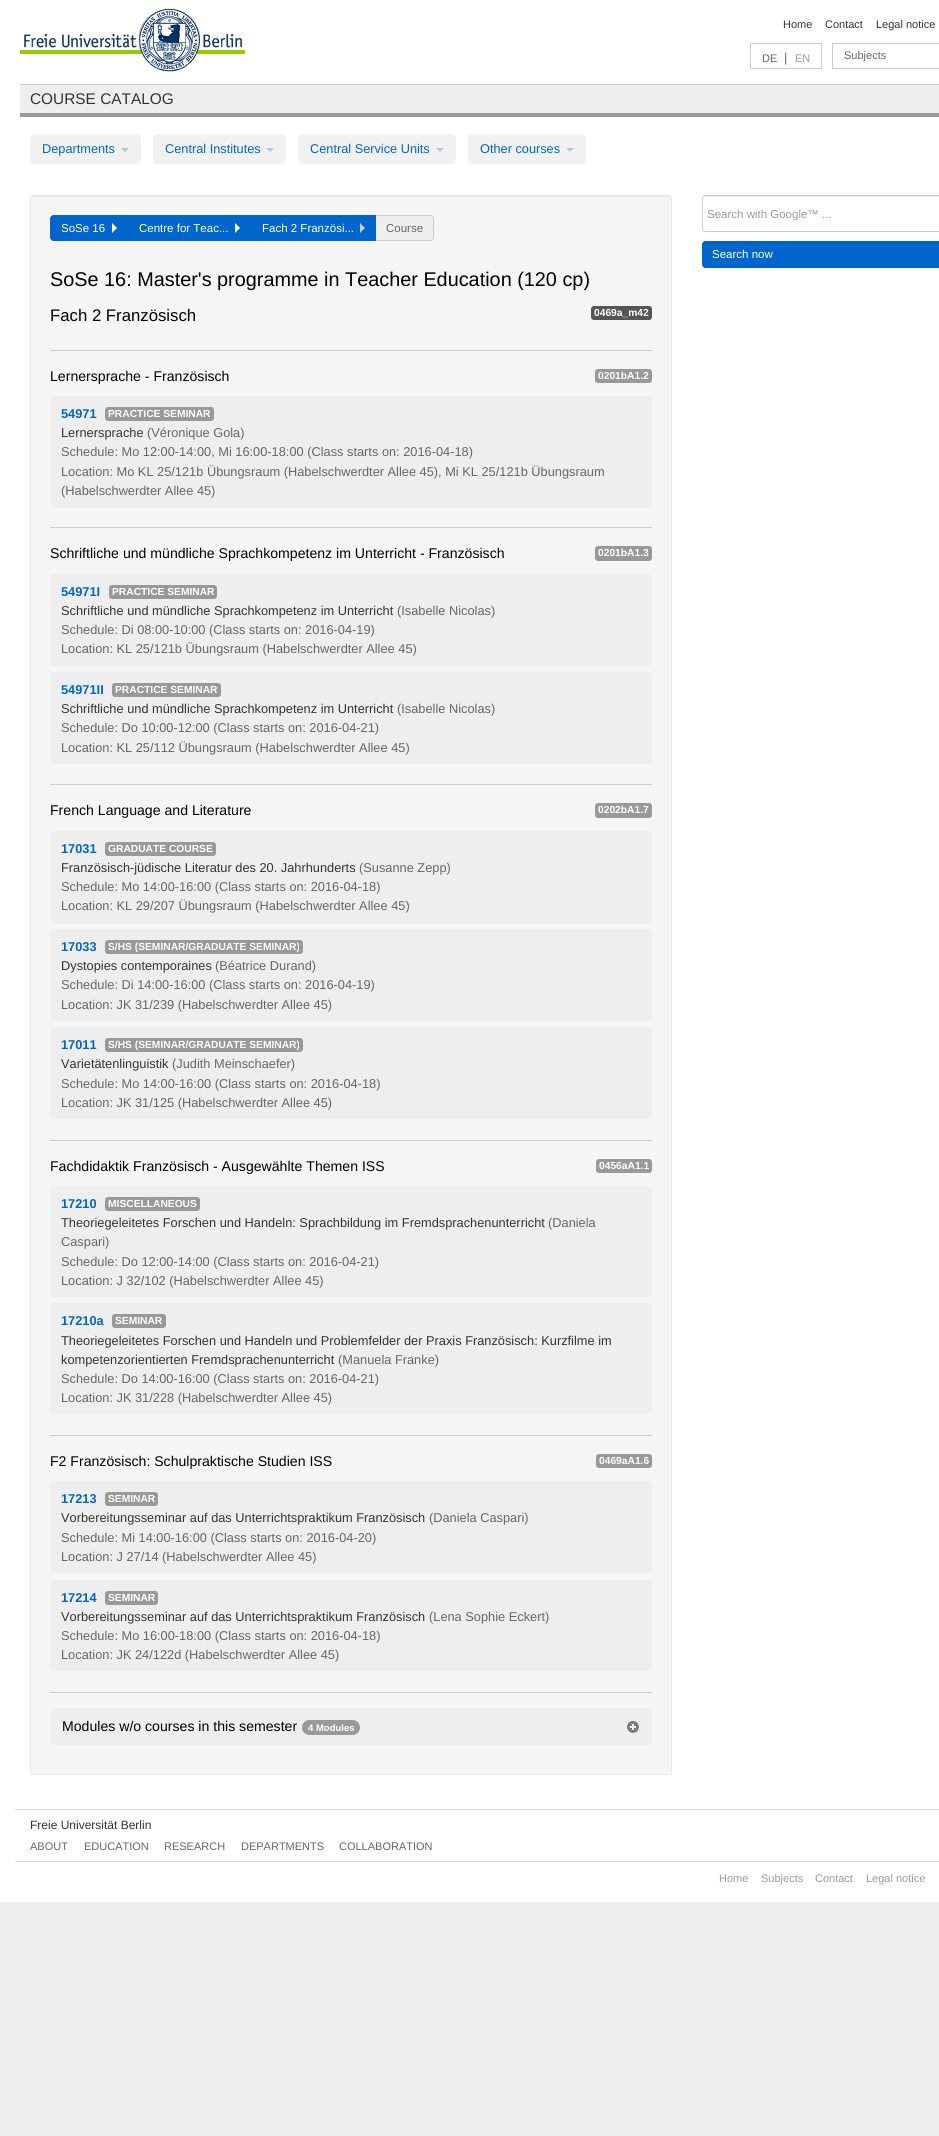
#include <cairo.h>
#include <math.h>
#include <stddef.h>


static void rgb(cairo_t *cr, int r, int g, int b)
{
	cairo_set_source_rgb(cr, r / 255.0, g / 255.0, b / 255.0);
}

static void face(cairo_t *cr, const char *family, double size, int italic, int bold)
{
	cairo_select_font_face(cr, family, italic ? CAIRO_FONT_SLANT_ITALIC : CAIRO_FONT_SLANT_NORMAL,
		bold ? CAIRO_FONT_WEIGHT_BOLD : CAIRO_FONT_WEIGHT_NORMAL);
	cairo_set_font_size(cr, size);
}

static void label(cairo_t *cr, double x, double y, const char *s)
{
	cairo_move_to(cr, x, y);
	cairo_show_text(cr, s);
}

static void rect(cairo_t *cr, double x, double y, double w, double h)
{
	cairo_rectangle(cr, x, y, w, h);
	cairo_fill(cr);
}

static void rrect(cairo_t *cr, double x, double y, double w, double h, double r)
{
	cairo_new_sub_path(cr);
	cairo_arc(cr, x + w - r, y + h - r, r, 0, M_PI / 2);
	cairo_arc(cr, x + r, y + h - r, r, M_PI / 2, M_PI);
	cairo_arc(cr, x + r, y + r, r, M_PI, 1.5 * M_PI);
	cairo_arc(cr, x + w - r, y + r, r, 1.5 * M_PI, 2 * M_PI);
	cairo_close_path(cr);
}

static void image(cairo_t *cr, const char *path, double x, double y, double w, double h)
{
	cairo_surface_t *image = cairo_image_surface_create_from_png(path);
	cairo_save(cr);
	cairo_set_source_surface(cr, image, x, y);
	cairo_rectangle(cr, x, y, w, h);
	cairo_fill(cr);
	cairo_restore(cr);
	cairo_surface_destroy(image);
}

static void draw(cairo_t *cr) {
	rgb(cr, 238, 238, 238);
	cairo_paint(cr);
	rgb(cr, 255, 255, 255);
	rect(cr, 0, 0, 939, 1902);
	image(cr, "image0.png", 20, 9, 225, 63);
	face(cr, "Liberation Sans", 11, 0, 0);
	rgb(cr, 51, 51, 51);
	label(cr, 783, 28, "Home");
	label(cr, 825, 28, "Contact");
	label(cr, 876, 28, "Legal notice");
	cairo_rectangle(cr, 750.5, 43.5, 71, 25);
	rgb(cr, 204, 204, 204);
	cairo_set_line_width(cr, 1);
	cairo_stroke(cr);
	rgb(cr, 102, 102, 102);
	label(cr, 762, 62, "DE");
	face(cr, "Liberation Sans", 12.75, 0, 0);
	label(cr, 784, 62, "|");
	face(cr, "Liberation Sans", 11, 0, 0);
	rgb(cr, 153, 153, 153);
	label(cr, 795, 62, "EN");
	cairo_rectangle(cr, 832.5, 43.5, 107, 25);
	rgb(cr, 204, 204, 204);
	cairo_stroke(cr);
	rgb(cr, 102, 102, 102);
	label(cr, 844, 59, "Subjects");
	rgb(cr, 238, 238, 238);
	rect(cr, 20, 85, 919, 28);
	rgb(cr, 204, 204, 204);
	rect(cr, 20, 84, 919, 1);
	rgb(cr, 153, 153, 153);
	rect(cr, 20, 113, 919, 4);
	face(cr, "Liberation Sans", 15.4, 0, 0);
	rgb(cr, 51, 51, 51);
	label(cr, 30, 104, "COURSE CATALOG");
	rgb(cr, 241, 241, 241);
	rrect(cr, 30, 134, 111, 30, 5);
	cairo_fill(cr);
	face(cr, "Liberation Sans", 12.75, 0, 0);
	rgb(cr, 0, 102, 204);
	label(cr, 42, 153, "Departments");
	rgb(cr, 169, 199, 230);
	cairo_new_path(cr);
	cairo_move_to(cr, 121, 148);
	cairo_line_to(cr, 129, 148);
	cairo_line_to(cr, 125, 152);
	cairo_close_path(cr);
	cairo_fill(cr);
	rgb(cr, 241, 241, 241);
	rrect(cr, 153, 134, 133, 30, 5);
	cairo_fill(cr);
	rgb(cr, 0, 102, 204);
	label(cr, 165, 153, "Central Institutes");
	rgb(cr, 169, 199, 230);
	cairo_new_path(cr);
	cairo_move_to(cr, 266, 148);
	cairo_line_to(cr, 274, 148);
	cairo_line_to(cr, 270, 152);
	cairo_close_path(cr);
	cairo_fill(cr);
	rgb(cr, 241, 241, 241);
	rrect(cr, 298, 134, 158, 30, 5);
	cairo_fill(cr);
	rgb(cr, 0, 102, 204);
	label(cr, 310, 153, "Central Service Units");
	rgb(cr, 169, 199, 230);
	cairo_new_path(cr);
	cairo_move_to(cr, 436, 148);
	cairo_line_to(cr, 444, 148);
	cairo_line_to(cr, 440, 152);
	cairo_close_path(cr);
	cairo_fill(cr);
	rgb(cr, 241, 241, 241);
	rrect(cr, 468, 134, 118, 30, 5);
	cairo_fill(cr);
	rgb(cr, 0, 102, 204);
	label(cr, 480, 153, "Other courses");
	rgb(cr, 169, 199, 230);
	cairo_new_path(cr);
	cairo_move_to(cr, 566, 148);
	cairo_line_to(cr, 574, 148);
	cairo_line_to(cr, 570, 152);
	cairo_close_path(cr);
	cairo_fill(cr);
	rgb(cr, 245, 245, 245);
	rrect(cr, 30, 195, 642, 1580, 4);
	cairo_fill(cr);
	rgb(cr, 233, 233, 233);
	cairo_new_path(cr);
	cairo_move_to(cr, 34, 197);
	cairo_line_to(cr, 668, 197);
	cairo_curve_to(cr, 670, 197, 671, 198, 671, 200);
	cairo_line_to(cr, 671, 199);
	cairo_curve_to(cr, 671, 197, 670, 196, 668, 196);
	cairo_line_to(cr, 34, 196);
	cairo_curve_to(cr, 32, 196, 31, 197, 31, 199);
	cairo_line_to(cr, 31, 200);
	cairo_curve_to(cr, 31, 198, 32, 197, 34, 197);
	cairo_close_path(cr);
	cairo_fill(cr);
	cairo_rectangle(cr, 30.5, 195.5, 641, 1579);
	cairo_set_source_rgba(cr, 0, 0, 0, 0.05);
	cairo_stroke(cr);
	rgb(cr, 0, 102, 204);
	cairo_new_path(cr);
	cairo_move_to(cr, 54, 215.5);
	cairo_line_to(cr, 127.5, 215.5);
	cairo_line_to(cr, 127.5, 240.5);
	cairo_line_to(cr, 54, 240.5);
	cairo_curve_to(cr, 52, 240.5, 50.5, 239, 50.5, 237);
	cairo_line_to(cr, 50.5, 219);
	cairo_curve_to(cr, 50.5, 217, 52, 215.5, 54, 215.5);
	cairo_close_path(cr);
	cairo_fill_preserve(cr);
	cairo_stroke(cr);
	face(cr, "Liberation Sans", 11.5, 0, 0);
	rgb(cr, 255, 255, 255);
	label(cr, 61, 232, "SoSe 16");
	cairo_new_path(cr);
	cairo_move_to(cr, 112, 233);
	cairo_line_to(cr, 112, 223);
	cairo_line_to(cr, 117, 228);
	cairo_close_path(cr);
	cairo_fill(cr);
	rgb(cr, 0, 102, 204);
	rect(cr, 128, 215, 248, 26);
	rgb(cr, 255, 255, 255);
	label(cr, 139, 232, "Centre for Teac...");
	cairo_new_path(cr);
	cairo_move_to(cr, 235, 233);
	cairo_line_to(cr, 235, 223);
	cairo_line_to(cr, 240, 228);
	cairo_close_path(cr);
	cairo_fill(cr);
	label(cr, 262, 232, "Fach 2 Französi...");
	rgb(cr, 204, 204, 204);
	cairo_new_path(cr);
	cairo_move_to(cr, 360, 233);
	cairo_line_to(cr, 360, 223);
	cairo_line_to(cr, 365, 228);
	cairo_close_path(cr);
	cairo_fill(cr);
	rgb(cr, 238, 238, 238);
	cairo_new_path(cr);
	cairo_move_to(cr, 376, 215);
	cairo_line_to(cr, 430, 215);
	cairo_curve_to(cr, 432, 215, 434, 217, 434, 219);
	cairo_line_to(cr, 434, 237);
	cairo_curve_to(cr, 434, 239, 432, 241, 430, 241);
	cairo_line_to(cr, 376, 241);
	cairo_close_path(cr);
	cairo_fill(cr);
	rgb(cr, 204, 204, 204);
	cairo_set_fill_rule(cr, CAIRO_FILL_RULE_EVEN_ODD);
	cairo_new_path(cr);
	cairo_move_to(cr, 376, 215);
	cairo_line_to(cr, 430, 215);
	cairo_curve_to(cr, 432, 215, 434, 217, 434, 219);
	cairo_line_to(cr, 434, 237);
	cairo_curve_to(cr, 434, 239, 432, 241, 430, 241);
	cairo_line_to(cr, 376, 241);
	cairo_close_path(cr);
	cairo_move_to(cr, 376, 216);
	cairo_line_to(cr, 430, 216);
	cairo_curve_to(cr, 432, 216, 433, 217, 433, 219);
	cairo_line_to(cr, 433, 237);
	cairo_curve_to(cr, 433, 239, 432, 240, 430, 240);
	cairo_line_to(cr, 376, 240);
	cairo_close_path(cr);
	cairo_fill(cr);
	rgb(cr, 102, 102, 102);
	label(cr, 386, 232, "Course");
	face(cr, "Liberation Sans", 19.85, 0, 0);
	rgb(cr, 0, 0, 0);
	label(cr, 50, 286, "SoSe 16: Master's programme in Teacher Education (120 cp)");
	face(cr, "Liberation Sans", 16.75, 0, 0);
	label(cr, 50, 321, "Fach 2 Französisch");
	rgb(cr, 85, 85, 85);
	rrect(cr, 591, 306, 61, 14, 3);
	cairo_fill(cr);
	face(cr, "Liberation Sans", 10.25, 0, 1);
	rgb(cr, 255, 255, 255);
	label(cr, 594, 316, "0469a_m42");
	rgb(cr, 204, 204, 204);
	rect(cr, 50, 350, 602, 1);
	face(cr, "Liberation Sans", 14.1, 0, 0);
	rgb(cr, 0, 0, 0);
	label(cr, 50, 381, "Lernersprache - Französisch");
	rgb(cr, 153, 153, 153);
	rrect(cr, 595, 369, 57, 14, 3);
	cairo_fill(cr);
	face(cr, "Liberation Sans", 10.25, 0, 1);
	rgb(cr, 255, 255, 255);
	label(cr, 598, 379, "0201bA1.2");
	rgb(cr, 238, 238, 238);
	rrect(cr, 50, 396, 602, 111, 4);
	cairo_fill(cr);
	face(cr, "Liberation Sans", 12.8, 0, 1);
	rgb(cr, 0, 102, 204);
	label(cr, 61, 418, "54971");
	rgb(cr, 153, 153, 153);
	rrect(cr, 105, 407, 109, 14, 3);
	cairo_fill(cr);
	face(cr, "Liberation Sans", 10.25, 0, 1);
	rgb(cr, 255, 255, 255);
	label(cr, 108, 417, "PRACTICE SEMINAR");
	face(cr, "Liberation Sans", 12.8, 0, 0);
	rgb(cr, 51, 51, 51);
	label(cr, 61, 437, "Lernersprache");
	rgb(cr, 102, 102, 102);
	label(cr, 147, 437, "(Véronique Gola)");
	label(cr, 61, 456, "Schedule: Mo 12:00-14:00, Mi 16:00-18:00 (Class starts on: 2016-04-18)");
	label(cr, 61, 476, "Location: Mo KL 25/121b Übungsraum (Habelschwerdter Allee 45), Mi KL 25/121b Übungsraum");
	label(cr, 61, 495, "(Habelschwerdter Allee 45)");
	rgb(cr, 204, 204, 204);
	rect(cr, 50, 527, 602, 1);
	face(cr, "Liberation Sans", 14.1, 0, 0);
	rgb(cr, 0, 0, 0);
	label(cr, 50, 558, "Schriftliche und mündliche Sprachkompetenz im Unterricht - Französisch");
	rgb(cr, 153, 153, 153);
	rrect(cr, 595, 546, 57, 15, 3);
	cairo_fill(cr);
	face(cr, "Liberation Sans", 10.25, 0, 1);
	rgb(cr, 255, 255, 255);
	label(cr, 598, 556, "0201bA1.3");
	rgb(cr, 238, 238, 238);
	rrect(cr, 50, 574, 602, 92, 4);
	cairo_fill(cr);
	face(cr, "Liberation Sans", 12.8, 0, 1);
	rgb(cr, 0, 102, 204);
	label(cr, 61, 596, "54971I");
	rgb(cr, 153, 153, 153);
	rrect(cr, 109, 585, 108, 14, 3);
	cairo_fill(cr);
	face(cr, "Liberation Sans", 10.25, 0, 1);
	rgb(cr, 255, 255, 255);
	label(cr, 112, 595, "PRACTICE SEMINAR");
	face(cr, "Liberation Sans", 12.8, 0, 0);
	rgb(cr, 51, 51, 51);
	label(cr, 61, 615, "Schriftliche und mündliche Sprachkompetenz im Unterricht");
	rgb(cr, 102, 102, 102);
	label(cr, 397, 615, "(Isabelle Nicolas)");
	label(cr, 61, 634, "Schedule: Di 08:00-10:00 (Class starts on: 2016-04-19)");
	label(cr, 61, 653, "Location: KL 25/121b Übungsraum (Habelschwerdter Allee 45)");
	rgb(cr, 238, 238, 238);
	rrect(cr, 50, 672, 602, 92, 4);
	cairo_fill(cr);
	face(cr, "Liberation Sans", 12.8, 0, 1);
	rgb(cr, 0, 102, 204);
	label(cr, 61, 694, "54971II");
	rgb(cr, 153, 153, 153);
	rrect(cr, 112, 683, 109, 14, 3);
	cairo_fill(cr);
	face(cr, "Liberation Sans", 10.25, 0, 1);
	rgb(cr, 255, 255, 255);
	label(cr, 115, 693, "PRACTICE SEMINAR");
	face(cr, "Liberation Sans", 12.8, 0, 0);
	rgb(cr, 51, 51, 51);
	label(cr, 61, 713, "Schriftliche und mündliche Sprachkompetenz im Unterricht");
	rgb(cr, 102, 102, 102);
	label(cr, 397, 713, "(Isabelle Nicolas)");
	label(cr, 61, 732, "Schedule: Do 10:00-12:00 (Class starts on: 2016-04-21)");
	label(cr, 61, 752, "Location: KL 25/112 Übungsraum (Habelschwerdter Allee 45)");
	rgb(cr, 204, 204, 204);
	rect(cr, 50, 784, 602, 1);
	face(cr, "Liberation Sans", 14.1, 0, 0);
	rgb(cr, 0, 0, 0);
	label(cr, 50, 815, "French Language and Literature");
	rgb(cr, 153, 153, 153);
	rrect(cr, 595, 803, 57, 15, 3);
	cairo_fill(cr);
	face(cr, "Liberation Sans", 10.25, 0, 1);
	rgb(cr, 255, 255, 255);
	label(cr, 598, 813, "0202bA1.7");
	rgb(cr, 238, 238, 238);
	rrect(cr, 50, 831, 602, 92, 4);
	cairo_fill(cr);
	face(cr, "Liberation Sans", 12.8, 0, 1);
	rgb(cr, 0, 102, 204);
	label(cr, 61, 853, "17031");
	rgb(cr, 153, 153, 153);
	rrect(cr, 105, 842, 111, 14, 3);
	cairo_fill(cr);
	face(cr, "Liberation Sans", 10.25, 0, 1);
	rgb(cr, 255, 255, 255);
	label(cr, 108, 852, "GRADUATE COURSE");
	face(cr, "Liberation Sans", 12.8, 0, 0);
	rgb(cr, 51, 51, 51);
	label(cr, 61, 872, "Französisch-jüdische Literatur des 20. Jahrhunderts");
	rgb(cr, 102, 102, 102);
	label(cr, 359, 872, "(Susanne Zepp)");
	label(cr, 61, 891, "Schedule: Mo 14:00-16:00 (Class starts on: 2016-04-18)");
	label(cr, 61, 910, "Location: KL 29/207 Übungsraum (Habelschwerdter Allee 45)");
	rgb(cr, 238, 238, 238);
	rrect(cr, 50, 929, 602, 92, 4);
	cairo_fill(cr);
	face(cr, "Liberation Sans", 12.8, 0, 1);
	rgb(cr, 0, 102, 204);
	label(cr, 61, 951, "17033");
	rgb(cr, 153, 153, 153);
	rrect(cr, 105, 940, 198, 14, 3);
	cairo_fill(cr);
	face(cr, "Liberation Sans", 10.25, 0, 1);
	rgb(cr, 255, 255, 255);
	label(cr, 108, 950, "S/HS (SEMINAR/GRADUATE SEMINAR)");
	face(cr, "Liberation Sans", 12.8, 0, 0);
	rgb(cr, 51, 51, 51);
	label(cr, 61, 970, "Dystopies contemporaines");
	rgb(cr, 102, 102, 102);
	label(cr, 215, 970, "(Béatrice Durand)");
	label(cr, 61, 989, "Schedule: Di 14:00-16:00 (Class starts on: 2016-04-19)");
	label(cr, 61, 1009, "Location: JK 31/239 (Habelschwerdter Allee 45)");
	rgb(cr, 238, 238, 238);
	rrect(cr, 50, 1027, 602, 92, 4);
	cairo_fill(cr);
	face(cr, "Liberation Sans", 12.8, 0, 1);
	rgb(cr, 0, 102, 204);
	label(cr, 61, 1049, "17011");
	rgb(cr, 153, 153, 153);
	rrect(cr, 105, 1038, 198, 14, 3);
	cairo_fill(cr);
	face(cr, "Liberation Sans", 10.25, 0, 1);
	rgb(cr, 255, 255, 255);
	label(cr, 108, 1048, "S/HS (SEMINAR/GRADUATE SEMINAR)");
	face(cr, "Liberation Sans", 12.8, 0, 0);
	rgb(cr, 51, 51, 51);
	label(cr, 61, 1068, "Varietätenlinguistik");
	rgb(cr, 102, 102, 102);
	label(cr, 172, 1068, "(Judith Meinschaefer)");
	label(cr, 61, 1088, "Schedule: Mo 14:00-16:00 (Class starts on: 2016-04-18)");
	label(cr, 61, 1107, "Location: JK 31/125 (Habelschwerdter Allee 45)");
	rgb(cr, 204, 204, 204);
	rect(cr, 50, 1140, 602, 1);
	face(cr, "Liberation Sans", 14.1, 0, 0);
	rgb(cr, 0, 0, 0);
	label(cr, 50, 1171, "Fachdidaktik Französisch - Ausgewählte Themen ISS");
	rgb(cr, 153, 153, 153);
	rrect(cr, 596, 1159, 56, 14, 3);
	cairo_fill(cr);
	face(cr, "Liberation Sans", 10.25, 0, 1);
	rgb(cr, 255, 255, 255);
	label(cr, 599, 1169, "0456aA1.1");
	rgb(cr, 238, 238, 238);
	rrect(cr, 50, 1186, 602, 111, 4);
	cairo_fill(cr);
	face(cr, "Liberation Sans", 12.8, 0, 1);
	rgb(cr, 0, 102, 204);
	label(cr, 61, 1208, "17210");
	rgb(cr, 153, 153, 153);
	rrect(cr, 105, 1197, 95, 14, 3);
	cairo_fill(cr);
	face(cr, "Liberation Sans", 10.25, 0, 1);
	rgb(cr, 255, 255, 255);
	label(cr, 108, 1207, "MISCELLANEOUS");
	face(cr, "Liberation Sans", 12.8, 0, 0);
	rgb(cr, 51, 51, 51);
	label(cr, 61, 1227, "Theoriegeleitetes Forschen und Handeln: Sprachbildung im Fremdsprachenunterricht");
	rgb(cr, 102, 102, 102);
	label(cr, 548, 1227, "(Daniela");
	label(cr, 61, 1246, "Caspari)");
	label(cr, 61, 1266, "Schedule: Do 12:00-14:00 (Class starts on: 2016-04-21)");
	label(cr, 61, 1285, "Location: J 32/102 (Habelschwerdter Allee 45)");
	rgb(cr, 238, 238, 238);
	rrect(cr, 50, 1303, 602, 111, 4);
	cairo_fill(cr);
	face(cr, "Liberation Sans", 12.8, 0, 1);
	rgb(cr, 0, 102, 204);
	label(cr, 61, 1325, "17210a");
	rgb(cr, 153, 153, 153);
	rrect(cr, 112, 1314, 54, 14, 3);
	cairo_fill(cr);
	face(cr, "Liberation Sans", 10.25, 0, 1);
	rgb(cr, 255, 255, 255);
	label(cr, 115, 1324, "SEMINAR");
	face(cr, "Liberation Sans", 12.8, 0, 0);
	rgb(cr, 51, 51, 51);
	label(cr, 61, 1345, "Theoriegeleitetes Forschen und Handeln und Problemfelder der Praxis Französisch: Kurzfilme im");
	label(cr, 61, 1364, "kompetenzorientierten Fremdsprachenunterricht");
	rgb(cr, 102, 102, 102);
	label(cr, 338, 1364, "(Manuela Franke)");
	label(cr, 61, 1383, "Schedule: Do 14:00-16:00 (Class starts on: 2016-04-21)");
	label(cr, 61, 1402, "Location: JK 31/228 (Habelschwerdter Allee 45)");
	rgb(cr, 204, 204, 204);
	rect(cr, 50, 1435, 602, 1);
	face(cr, "Liberation Sans", 14.1, 0, 0);
	rgb(cr, 0, 0, 0);
	label(cr, 50, 1466, "F2 Französisch: Schulpraktische Studien ISS");
	rgb(cr, 153, 153, 153);
	rrect(cr, 596, 1454, 56, 14, 3);
	cairo_fill(cr);
	face(cr, "Liberation Sans", 10.25, 0, 1);
	rgb(cr, 255, 255, 255);
	label(cr, 599, 1464, "0469aA1.6");
	rgb(cr, 238, 238, 238);
	rrect(cr, 50, 1481, 602, 92, 4);
	cairo_fill(cr);
	face(cr, "Liberation Sans", 12.8, 0, 1);
	rgb(cr, 0, 102, 204);
	label(cr, 61, 1503, "17213");
	rgb(cr, 153, 153, 153);
	rrect(cr, 105, 1492, 53, 14, 3);
	cairo_fill(cr);
	face(cr, "Liberation Sans", 10.25, 0, 1);
	rgb(cr, 255, 255, 255);
	label(cr, 108, 1502, "SEMINAR");
	face(cr, "Liberation Sans", 12.8, 0, 0);
	rgb(cr, 51, 51, 51);
	label(cr, 61, 1522, "Vorbereitungsseminar auf das Unterrichtspraktikum Französisch");
	rgb(cr, 102, 102, 102);
	label(cr, 429, 1522, "(Daniela Caspari)");
	label(cr, 61, 1542, "Schedule: Mi 14:00-16:00 (Class starts on: 2016-04-20)");
	label(cr, 61, 1561, "Location: J 27/14 (Habelschwerdter Allee 45)");
	rgb(cr, 238, 238, 238);
	rrect(cr, 50, 1580, 602, 91, 4);
	cairo_fill(cr);
	face(cr, "Liberation Sans", 12.8, 0, 1);
	rgb(cr, 0, 102, 204);
	label(cr, 61, 1602, "17214");
	rgb(cr, 153, 153, 153);
	rrect(cr, 105, 1591, 53, 14, 3);
	cairo_fill(cr);
	face(cr, "Liberation Sans", 10.25, 0, 1);
	rgb(cr, 255, 255, 255);
	label(cr, 108, 1601, "SEMINAR");
	face(cr, "Liberation Sans", 12.8, 0, 0);
	rgb(cr, 51, 51, 51);
	label(cr, 61, 1621, "Vorbereitungsseminar auf das Unterrichtspraktikum Französisch");
	rgb(cr, 102, 102, 102);
	label(cr, 429, 1621, "(Lena Sophie Eckert)");
	label(cr, 61, 1640, "Schedule: Mo 16:00-18:00 (Class starts on: 2016-04-18)");
	label(cr, 61, 1659, "Location: JK 24/122d (Habelschwerdter Allee 45)");
	rgb(cr, 204, 204, 204);
	rect(cr, 50, 1692, 602, 1);
	rgb(cr, 238, 238, 238);
	rrect(cr, 50, 1709, 602, 36, 4);
	cairo_fill(cr);
	face(cr, "Liberation Sans", 14.1, 0, 0);
	rgb(cr, 0, 0, 0);
	label(cr, 62, 1731, "Modules w/o courses in this semester");
	rgb(cr, 153, 153, 153);
	rrect(cr, 302, 1720, 58, 15, 7.5);
	cairo_fill(cr);
	face(cr, "Liberation Sans", 9.5, 0, 1);
	rgb(cr, 255, 255, 255);
	label(cr, 308, 1731, "4 Modules");
	image(cr, "image1.png", 627, 1721, 12, 12);
	rgb(cr, 236, 236, 236);
	cairo_set_fill_rule(cr, CAIRO_FILL_RULE_WINDING);
	cairo_new_path(cr);
	cairo_move_to(cr, 705, 197);
	cairo_line_to(cr, 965, 197);
	cairo_curve_to(cr, 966, 197, 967, 198, 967, 199);
	cairo_line_to(cr, 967, 198);
	cairo_curve_to(cr, 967, 197, 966, 196, 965, 196);
	cairo_line_to(cr, 705, 196);
	cairo_curve_to(cr, 704, 196, 703, 197, 703, 198);
	cairo_line_to(cr, 703, 199);
	cairo_curve_to(cr, 703, 198, 704, 197, 705, 197);
	cairo_close_path(cr);
	cairo_fill(cr);
	rrect(cr, 702.5, 195.5, 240, 36, 2.5);
	rgb(cr, 204, 204, 204);
	cairo_stroke(cr);
	cairo_save(cr);
	cairo_rectangle(cr, 707, 208, 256, 12);
	cairo_clip(cr);
	face(cr, "Liberation Sans", 11.5, 0, 0);
	rgb(cr, 153, 153, 153);
	label(cr, 707, 218, "Search with Google™ ...");
	cairo_restore(cr);
	rgb(cr, 0, 102, 204);
	rrect(cr, 702, 241, 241, 27, 4);
	cairo_fill(cr);
	rgb(cr, 0, 94, 189);
	cairo_new_path(cr);
	cairo_move_to(cr, 706, 243);
	cairo_line_to(cr, 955, 243);
	cairo_line_to(cr, 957, 244);
	cairo_line_to(cr, 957, 246);
	cairo_curve_to(cr, 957, 244, 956, 242, 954, 242);
	cairo_line_to(cr, 706, 242);
	cairo_curve_to(cr, 704, 242, 703, 244, 703, 246);
	cairo_curve_to(cr, 703, 244, 704, 243, 706, 243);
	cairo_close_path(cr);
	cairo_fill(cr);
	rrect(cr, 702.5, 241.5, 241, 26, 3.5);
	rgb(cr, 0, 102, 204);
	cairo_stroke(cr);
	face(cr, "Liberation Sans", 11.5, 0, 0);
	rgb(cr, 255, 255, 255);
	label(cr, 712, 258, "Search now");
	rgb(cr, 221, 221, 221);
	rect(cr, 15, 1809, 924, 1);
	face(cr, "Liberation Sans", 12, 0, 0);
	rgb(cr, 51, 51, 51);
	label(cr, 30, 1829, "Freie Universität Berlin");
	face(cr, "Liberation Sans", 11, 0, 0);
	rgb(cr, 102, 102, 102);
	label(cr, 30, 1850, "ABOUT");
	label(cr, 84, 1850, "EDUCATION");
	label(cr, 164, 1850, "RESEARCH");
	label(cr, 241, 1850, "DEPARTMENTS");
	label(cr, 339, 1850, "COLLABORATION");
	rgb(cr, 221, 221, 221);
	rect(cr, 15, 1861, 924, 1);
	rgb(cr, 153, 153, 153);
	label(cr, 719, 1882, "Home");
	label(cr, 761, 1882, "Subjects");
	label(cr, 815, 1882, "Contact");
	label(cr, 866, 1882, "Legal notice");
}

int main(void) {
	cairo_surface_t *surface = cairo_image_surface_create(CAIRO_FORMAT_RGB24, 939, 2136);
	cairo_t *cr = cairo_create(surface);
	cairo_font_options_t *options = cairo_font_options_create();
	cairo_font_options_set_hint_metrics(options, CAIRO_HINT_METRICS_OFF);
	cairo_font_options_set_hint_style(options, CAIRO_HINT_STYLE_NONE);
	cairo_set_font_options(cr, options);
	cairo_set_miter_limit(cr, 4);
	draw(cr);
	cairo_surface_write_to_png(surface, "render.png");
	cairo_font_options_destroy(options);
	cairo_destroy(cr);
	cairo_surface_destroy(surface);
	return 0;
}
